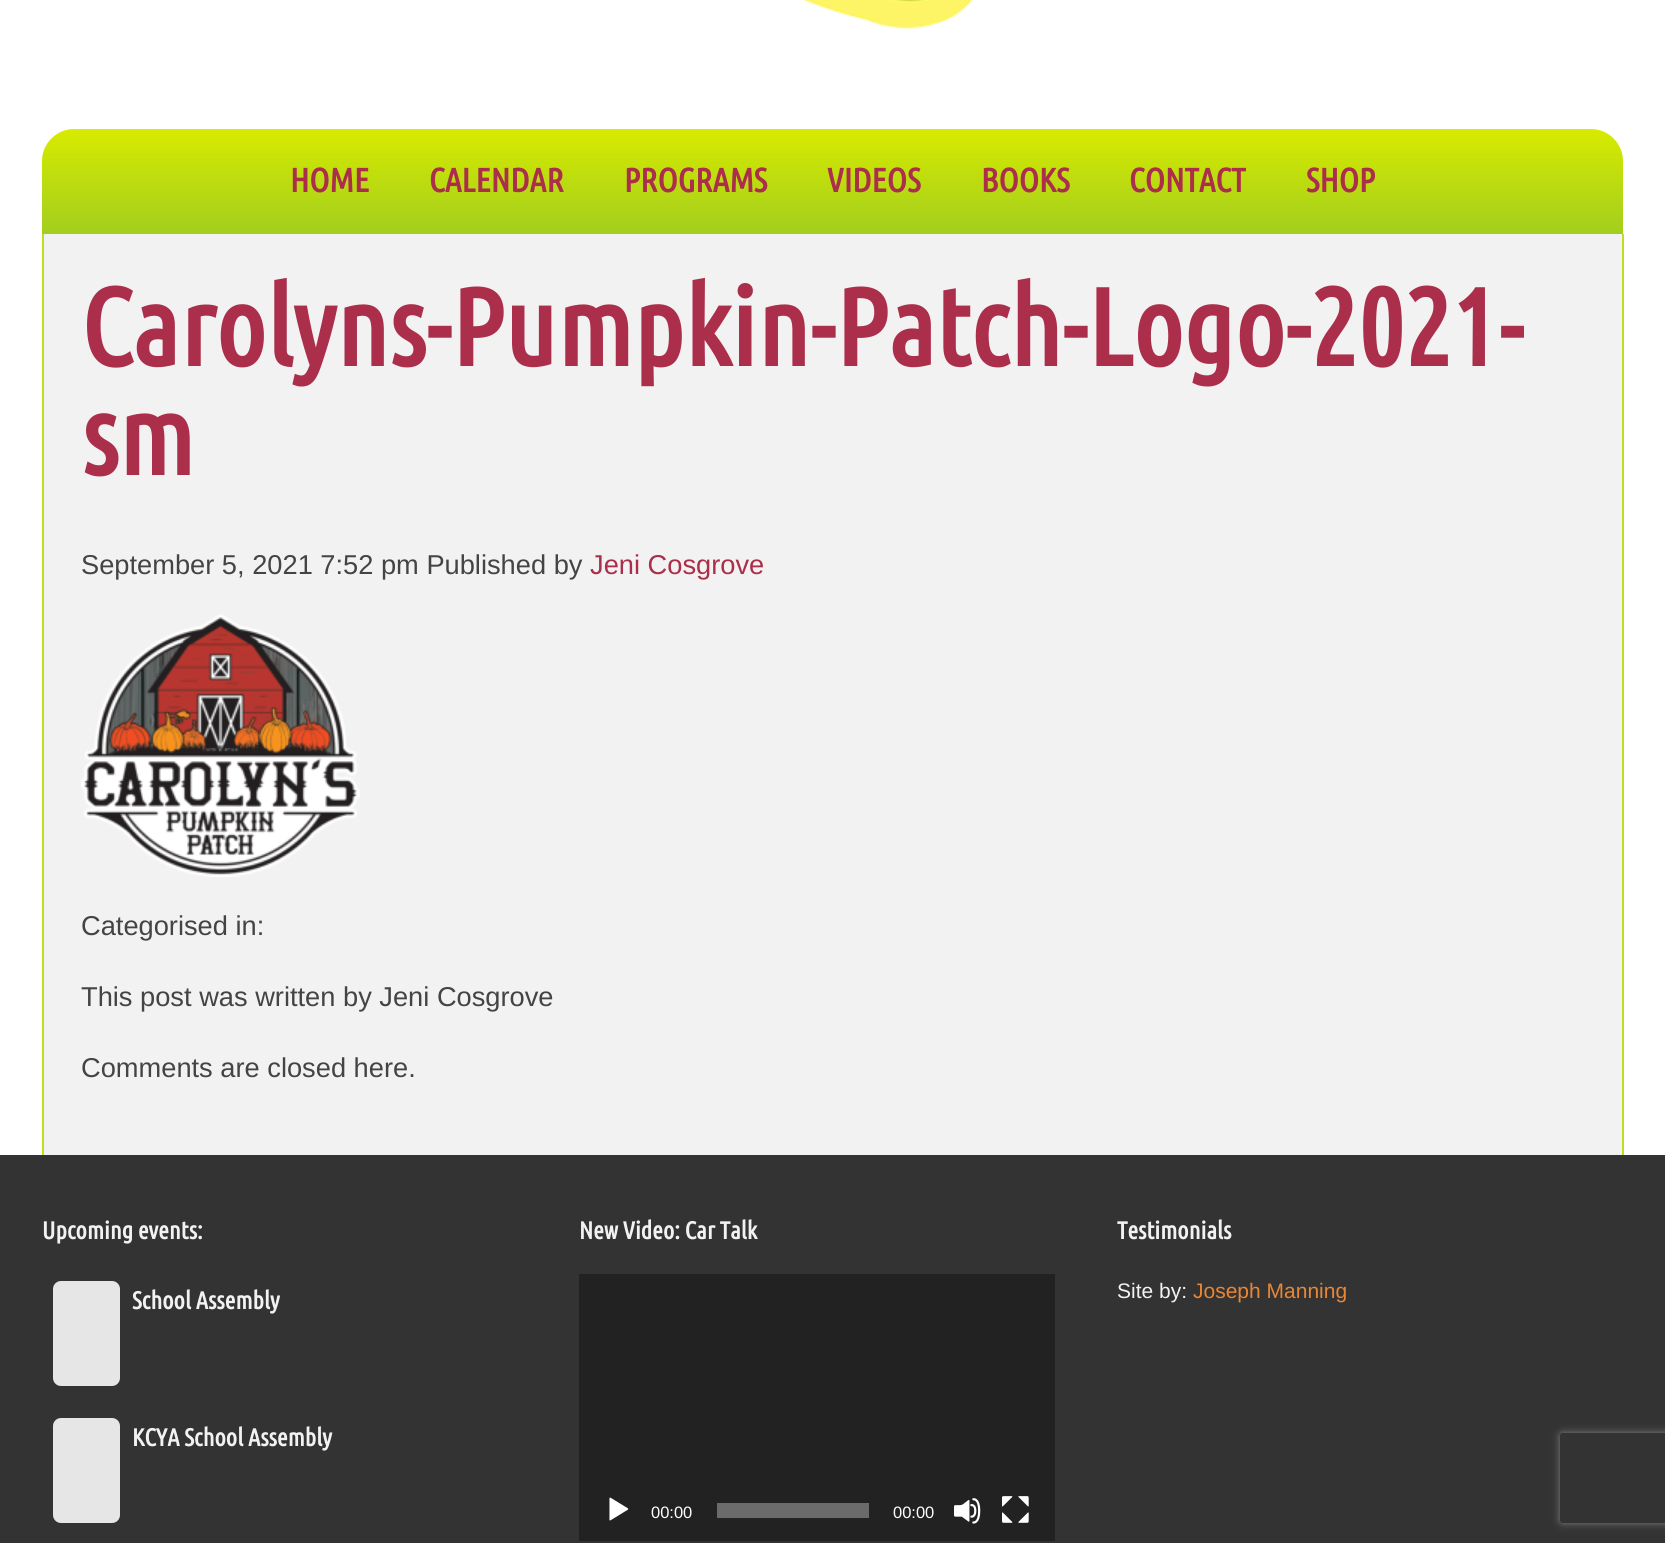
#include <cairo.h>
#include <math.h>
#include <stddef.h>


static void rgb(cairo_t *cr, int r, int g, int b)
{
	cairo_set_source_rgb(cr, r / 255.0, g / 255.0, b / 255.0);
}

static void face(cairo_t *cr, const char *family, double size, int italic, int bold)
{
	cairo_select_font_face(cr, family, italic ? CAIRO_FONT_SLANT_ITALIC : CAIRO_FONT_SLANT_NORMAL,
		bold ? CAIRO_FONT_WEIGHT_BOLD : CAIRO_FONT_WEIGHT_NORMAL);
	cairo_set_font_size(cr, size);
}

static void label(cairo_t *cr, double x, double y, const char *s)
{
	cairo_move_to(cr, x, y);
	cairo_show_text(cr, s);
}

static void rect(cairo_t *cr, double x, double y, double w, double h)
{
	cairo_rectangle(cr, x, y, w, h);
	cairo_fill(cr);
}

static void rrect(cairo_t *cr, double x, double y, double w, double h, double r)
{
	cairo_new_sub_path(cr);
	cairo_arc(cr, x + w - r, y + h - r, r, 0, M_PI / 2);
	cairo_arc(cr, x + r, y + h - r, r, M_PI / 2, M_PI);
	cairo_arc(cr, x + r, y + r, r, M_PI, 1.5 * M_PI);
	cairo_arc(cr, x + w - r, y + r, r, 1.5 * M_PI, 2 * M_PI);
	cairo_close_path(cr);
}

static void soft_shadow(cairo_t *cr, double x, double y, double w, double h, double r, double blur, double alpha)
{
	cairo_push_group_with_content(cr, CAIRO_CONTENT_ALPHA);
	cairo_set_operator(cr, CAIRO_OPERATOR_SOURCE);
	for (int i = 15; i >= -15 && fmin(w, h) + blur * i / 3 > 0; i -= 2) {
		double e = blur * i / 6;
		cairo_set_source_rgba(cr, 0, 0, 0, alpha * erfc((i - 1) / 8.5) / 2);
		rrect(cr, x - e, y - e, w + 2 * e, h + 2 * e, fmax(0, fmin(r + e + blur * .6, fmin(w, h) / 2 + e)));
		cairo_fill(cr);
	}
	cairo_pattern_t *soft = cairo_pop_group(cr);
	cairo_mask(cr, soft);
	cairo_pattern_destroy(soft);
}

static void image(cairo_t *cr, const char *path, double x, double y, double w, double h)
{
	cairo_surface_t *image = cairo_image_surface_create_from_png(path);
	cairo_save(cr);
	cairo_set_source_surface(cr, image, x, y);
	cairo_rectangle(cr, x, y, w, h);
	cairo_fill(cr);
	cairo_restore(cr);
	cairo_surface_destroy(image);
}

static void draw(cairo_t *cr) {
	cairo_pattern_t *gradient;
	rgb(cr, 255, 255, 255);
	cairo_paint(cr);
	image(cr, "image0.png", 803, 0, 170, 30);
	gradient = cairo_pattern_create_linear(833, 129, 833, 234);
	cairo_pattern_add_color_stop_rgba(gradient, 0.01, 0.843, 0.918, 0, 1);
	cairo_pattern_add_color_stop_rgba(gradient, 1, 0.635, 0.808, 0.118, 1);
	cairo_set_source(cr, gradient);
	cairo_pattern_destroy(gradient);
	cairo_new_path(cr);
	cairo_move_to(cr, 74, 129);
	cairo_line_to(cr, 1591, 129);
	cairo_curve_to(cr, 1608.5, 129, 1623, 143.5, 1623, 161);
	cairo_line_to(cr, 1623, 234);
	cairo_line_to(cr, 42, 234);
	cairo_line_to(cr, 42, 161);
	cairo_curve_to(cr, 42, 143.5, 56.5, 129, 74, 129);
	cairo_close_path(cr);
	cairo_fill(cr);
	face(cr, "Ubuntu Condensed", 33.5, 0, 1);
	rgb(cr, 171, 46, 74);
	label(cr, 290, 192, "HOME");
	label(cr, 429, 192, "CALENDAR");
	label(cr, 624, 192, "PROGRAMS");
	label(cr, 827, 192, "VIDEOS");
	label(cr, 981, 192, "BOOKS");
	label(cr, 1129, 192, "CONTACT");
	label(cr, 1306, 192, "SHOP");
	rgb(cr, 242, 242, 242);
	rect(cr, 44, 234, 1578, 921);
	rgb(cr, 194, 221, 32);
	rect(cr, 1622, 234, 2, 921);
	rect(cr, 42, 234, 2, 921);
	face(cr, "Ubuntu Condensed", 109.25, 0, 1);
	rgb(cr, 171, 46, 74);
	label(cr, 81, 366, "Carolyns-Pumpkin-Patch-Logo-2021-");
	label(cr, 81, 475, "sm");
	face(cr, "Liberation Sans", 27.25, 0, 0);
	rgb(cr, 68, 68, 68);
	label(cr, 81, 574, "September 5, 2021 7:52 pm Published by");
	rgb(cr, 171, 46, 74);
	label(cr, 590, 574, "Jeni Cosgrove");
	image(cr, "image1.png", 81, 614, 279, 263);
	rgb(cr, 68, 68, 68);
	label(cr, 81, 935, "Categorised in:");
	label(cr, 81, 1006, "This post was written by Jeni Cosgrove");
	label(cr, 81, 1077, "Comments are closed here.");
	rgb(cr, 51, 51, 51);
	rect(cr, 0, 1155, 1665, 388);
	face(cr, "Ubuntu Condensed", 24.5, 0, 1);
	rgb(cr, 242, 242, 242);
	label(cr, 42, 1239, "Upcoming events:");
	rgb(cr, 230, 230, 230);
	rrect(cr, 53, 1281, 67, 105, 8);
	cairo_fill(cr);
	rgb(cr, 242, 242, 242);
	label(cr, 132, 1309, "School Assembly");
	rgb(cr, 230, 230, 230);
	rrect(cr, 53, 1418, 67, 105, 8);
	cairo_fill(cr);
	rgb(cr, 242, 242, 242);
	label(cr, 132, 1446, "KCYA School Assembly");
	label(cr, 579, 1239, "New Video: Car Talk");
	rgb(cr, 34, 34, 34);
	rect(cr, 579, 1274, 476, 267);
	image(cr, "image2.png", 609, 1497, 20, 24);
	face(cr, "Liberation Sans", 16.5, 0, 0);
	rgb(cr, 255, 255, 255);
	label(cr, 651, 1518, "00:00");
	rgb(cr, 107, 107, 107);
	rect(cr, 717, 1503, 152, 15);
	rgb(cr, 255, 255, 255);
	label(cr, 893, 1518, "00:00");
	image(cr, "image3.png", 954, 1498, 27, 26);
	image(cr, "image4.png", 1002, 1496, 27, 27);
	face(cr, "Ubuntu Condensed", 24.5, 0, 1);
	rgb(cr, 242, 242, 242);
	label(cr, 1117, 1239, "Testimonials");
	face(cr, "Liberation Sans", 21, 0, 0);
	label(cr, 1117, 1298, "Site by:");
	rgb(cr, 233, 134, 51);
	label(cr, 1193, 1298, "Joseph Manning");
	cairo_save(cr);
	cairo_set_fill_rule(cr, CAIRO_FILL_RULE_EVEN_ODD);
	cairo_new_path(cr);
	cairo_move_to(cr, 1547, 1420);
	cairo_line_to(cr, 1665, 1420);
	cairo_line_to(cr, 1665, 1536);
	cairo_line_to(cr, 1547, 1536);
	cairo_close_path(cr);
	cairo_move_to(cr, 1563, 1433);
	cairo_line_to(cr, 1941, 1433);
	cairo_curve_to(cr, 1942.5, 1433, 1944, 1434.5, 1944, 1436);
	cairo_line_to(cr, 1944, 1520);
	cairo_curve_to(cr, 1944, 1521.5, 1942.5, 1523, 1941, 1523);
	cairo_line_to(cr, 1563, 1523);
	cairo_curve_to(cr, 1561.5, 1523, 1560, 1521.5, 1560, 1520);
	cairo_line_to(cr, 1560, 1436);
	cairo_curve_to(cr, 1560, 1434.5, 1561.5, 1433, 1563, 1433);
	cairo_close_path(cr);
	cairo_clip(cr);
	rgb(cr, 128, 128, 128);
	soft_shadow(cr, 1560, 1433, 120, 90, 3, 4, 1);
	cairo_restore(cr);
}

int main(void) {
	cairo_surface_t *surface = cairo_image_surface_create(CAIRO_FORMAT_RGB24, 1665, 1543);
	cairo_t *cr = cairo_create(surface);
	cairo_font_options_t *options = cairo_font_options_create();
	cairo_font_options_set_hint_metrics(options, CAIRO_HINT_METRICS_OFF);
	cairo_font_options_set_hint_style(options, CAIRO_HINT_STYLE_NONE);
	cairo_set_font_options(cr, options);
	cairo_set_miter_limit(cr, 4);
	draw(cr);
	cairo_surface_write_to_png(surface, "render.png");
	cairo_font_options_destroy(options);
	cairo_destroy(cr);
	cairo_surface_destroy(surface);
	return 0;
}
